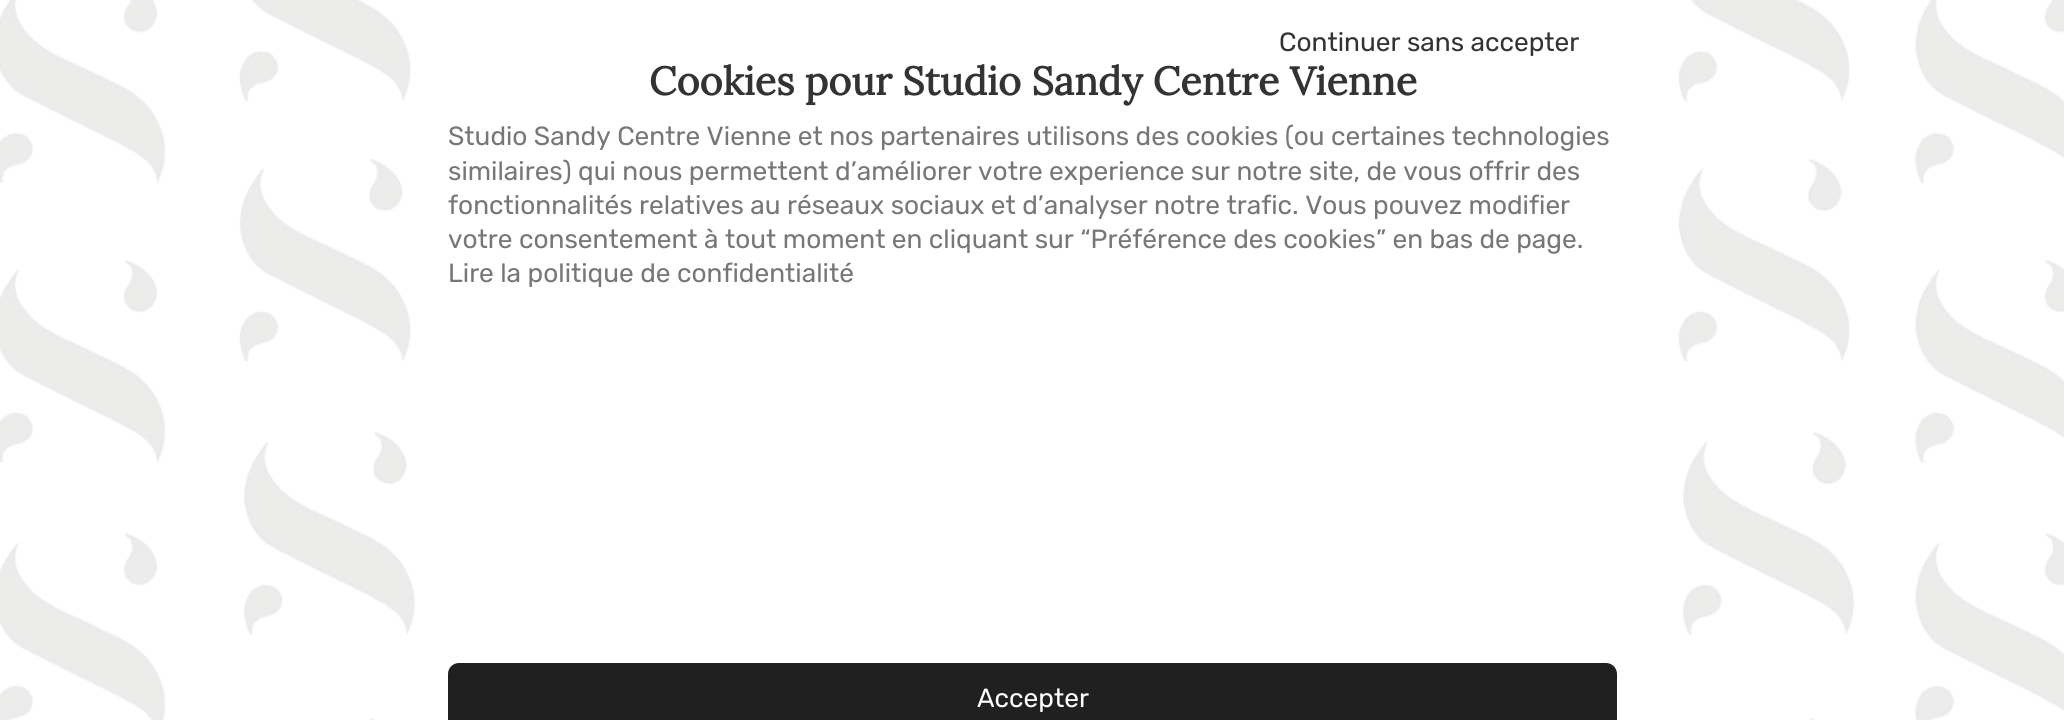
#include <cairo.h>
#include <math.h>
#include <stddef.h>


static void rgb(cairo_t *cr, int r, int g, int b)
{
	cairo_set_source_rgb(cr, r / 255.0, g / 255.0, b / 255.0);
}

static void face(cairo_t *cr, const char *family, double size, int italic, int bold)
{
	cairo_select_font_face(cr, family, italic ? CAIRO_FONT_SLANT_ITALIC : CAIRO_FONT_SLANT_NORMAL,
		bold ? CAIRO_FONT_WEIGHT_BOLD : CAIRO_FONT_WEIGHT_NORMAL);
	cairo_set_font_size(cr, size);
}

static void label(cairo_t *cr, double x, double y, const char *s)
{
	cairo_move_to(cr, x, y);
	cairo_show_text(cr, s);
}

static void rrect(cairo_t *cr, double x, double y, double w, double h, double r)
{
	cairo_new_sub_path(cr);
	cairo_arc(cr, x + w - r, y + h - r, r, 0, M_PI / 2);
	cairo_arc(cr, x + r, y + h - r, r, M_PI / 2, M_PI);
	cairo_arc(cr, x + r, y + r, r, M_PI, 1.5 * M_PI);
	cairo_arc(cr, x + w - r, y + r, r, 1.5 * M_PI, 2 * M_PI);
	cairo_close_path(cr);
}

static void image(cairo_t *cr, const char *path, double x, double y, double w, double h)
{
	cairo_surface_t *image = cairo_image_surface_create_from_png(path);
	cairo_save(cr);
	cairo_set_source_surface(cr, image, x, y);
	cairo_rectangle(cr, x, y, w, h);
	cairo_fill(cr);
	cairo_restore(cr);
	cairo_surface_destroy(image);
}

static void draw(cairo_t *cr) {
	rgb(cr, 255, 255, 255);
	cairo_paint(cr);
	image(cr, "image0.png", 0, 0, 2064, 720);
	rgb(cr, 255, 255, 255);
	rrect(cr, 420, 0, 1225, 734, 14);
	cairo_fill(cr);
	face(cr, "Rubik", 26.25, 0, 0);
	rgb(cr, 51, 51, 51);
	label(cr, 1279, 51, "Continuer sans accepter");
	face(cr, "Lora", 39.4, 0, 1);
	label(cr, 649, 95, "Cookies pour Studio Sandy Centre Vienne");
	face(cr, "Rubik", 26.25, 0, 0);
	rgb(cr, 119, 119, 119);
	label(cr, 448, 145, "Studio Sandy Centre Vienne et nos partenaires utilisons des cookies (ou certaines technologies");
	label(cr, 448, 180, "similaires) qui nous permettent d’améliorer votre experience sur notre site, de vous offrir des");
	label(cr, 448, 214, "fonctionnalités relatives au réseaux sociaux et d’analyser notre trafic. Vous pouvez modifier");
	label(cr, 448, 248, "votre consentement à tout moment en cliquant sur “Préférence des cookies” en bas de page.");
	label(cr, 448, 282, "Lire la politique de confidentialité");
	rgb(cr, 32, 32, 32);
	rrect(cr, 448, 663, 1169, 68, 11);
	cairo_fill(cr);
	rgb(cr, 255, 255, 255);
	label(cr, 977, 707, "Accepter");
}

int main(void) {
	cairo_surface_t *surface = cairo_image_surface_create(CAIRO_FORMAT_RGB24, 2064, 720);
	cairo_t *cr = cairo_create(surface);
	cairo_font_options_t *options = cairo_font_options_create();
	cairo_font_options_set_hint_metrics(options, CAIRO_HINT_METRICS_OFF);
	cairo_font_options_set_hint_style(options, CAIRO_HINT_STYLE_NONE);
	cairo_set_font_options(cr, options);
	cairo_set_miter_limit(cr, 4);
	draw(cr);
	cairo_surface_write_to_png(surface, "render.png");
	cairo_font_options_destroy(options);
	cairo_destroy(cr);
	cairo_surface_destroy(surface);
	return 0;
}
